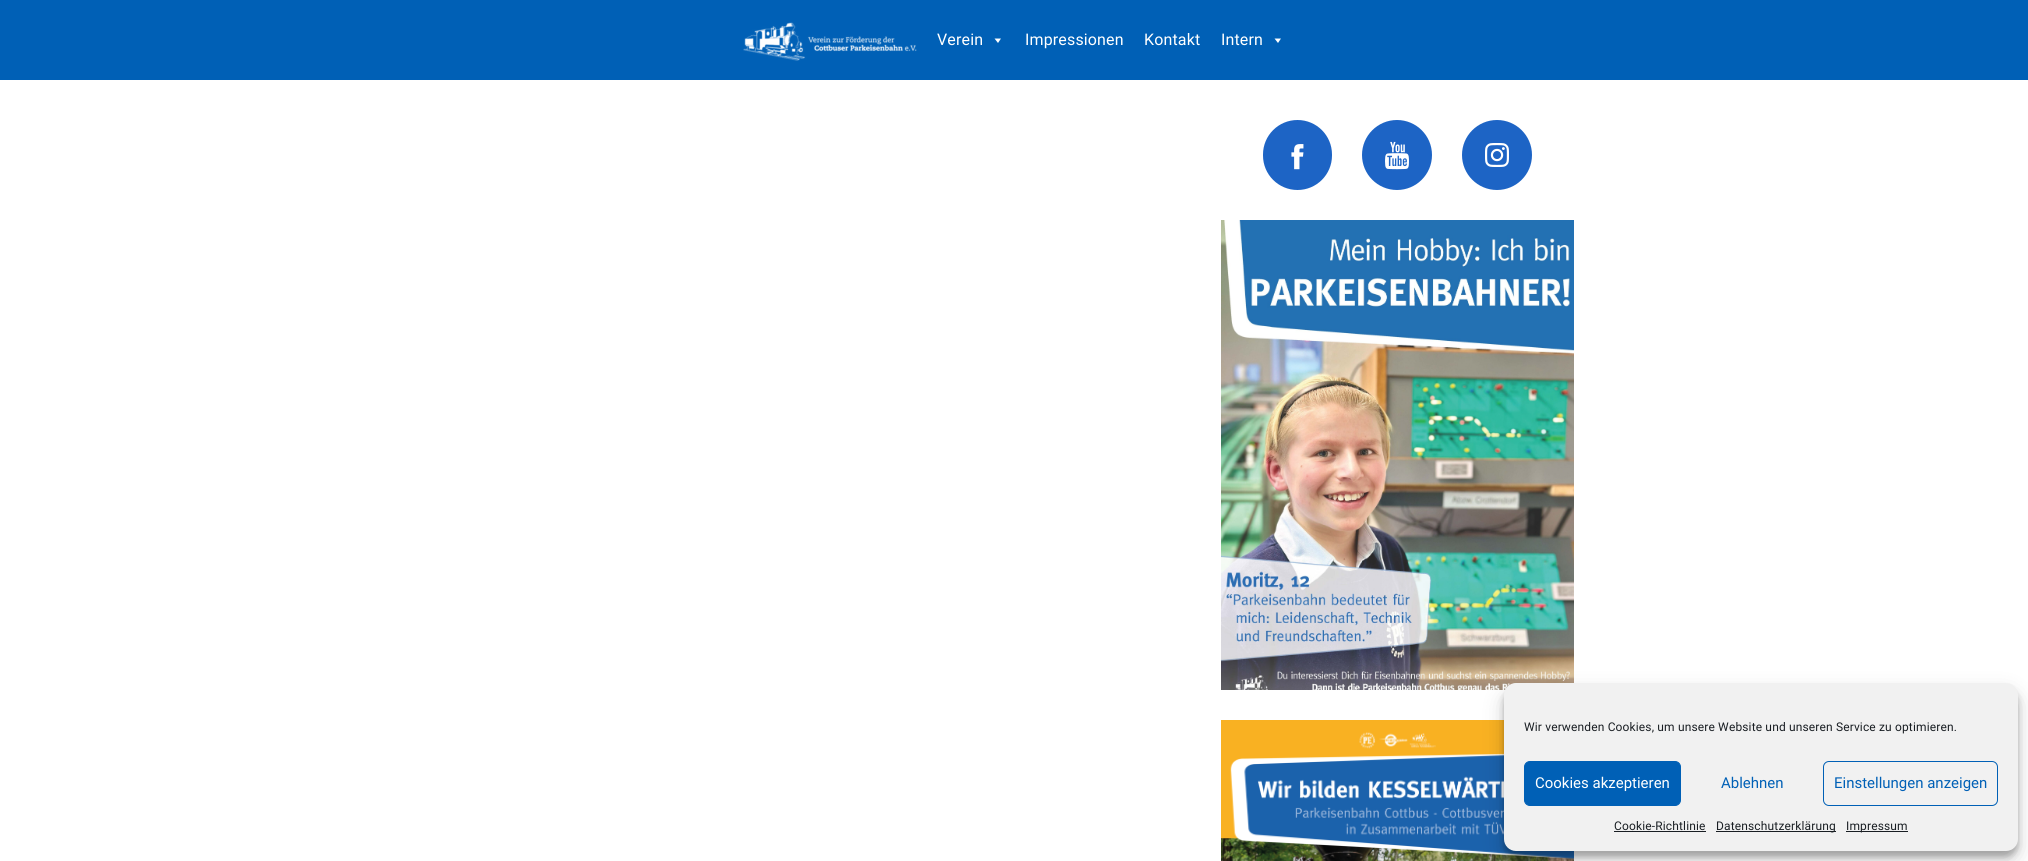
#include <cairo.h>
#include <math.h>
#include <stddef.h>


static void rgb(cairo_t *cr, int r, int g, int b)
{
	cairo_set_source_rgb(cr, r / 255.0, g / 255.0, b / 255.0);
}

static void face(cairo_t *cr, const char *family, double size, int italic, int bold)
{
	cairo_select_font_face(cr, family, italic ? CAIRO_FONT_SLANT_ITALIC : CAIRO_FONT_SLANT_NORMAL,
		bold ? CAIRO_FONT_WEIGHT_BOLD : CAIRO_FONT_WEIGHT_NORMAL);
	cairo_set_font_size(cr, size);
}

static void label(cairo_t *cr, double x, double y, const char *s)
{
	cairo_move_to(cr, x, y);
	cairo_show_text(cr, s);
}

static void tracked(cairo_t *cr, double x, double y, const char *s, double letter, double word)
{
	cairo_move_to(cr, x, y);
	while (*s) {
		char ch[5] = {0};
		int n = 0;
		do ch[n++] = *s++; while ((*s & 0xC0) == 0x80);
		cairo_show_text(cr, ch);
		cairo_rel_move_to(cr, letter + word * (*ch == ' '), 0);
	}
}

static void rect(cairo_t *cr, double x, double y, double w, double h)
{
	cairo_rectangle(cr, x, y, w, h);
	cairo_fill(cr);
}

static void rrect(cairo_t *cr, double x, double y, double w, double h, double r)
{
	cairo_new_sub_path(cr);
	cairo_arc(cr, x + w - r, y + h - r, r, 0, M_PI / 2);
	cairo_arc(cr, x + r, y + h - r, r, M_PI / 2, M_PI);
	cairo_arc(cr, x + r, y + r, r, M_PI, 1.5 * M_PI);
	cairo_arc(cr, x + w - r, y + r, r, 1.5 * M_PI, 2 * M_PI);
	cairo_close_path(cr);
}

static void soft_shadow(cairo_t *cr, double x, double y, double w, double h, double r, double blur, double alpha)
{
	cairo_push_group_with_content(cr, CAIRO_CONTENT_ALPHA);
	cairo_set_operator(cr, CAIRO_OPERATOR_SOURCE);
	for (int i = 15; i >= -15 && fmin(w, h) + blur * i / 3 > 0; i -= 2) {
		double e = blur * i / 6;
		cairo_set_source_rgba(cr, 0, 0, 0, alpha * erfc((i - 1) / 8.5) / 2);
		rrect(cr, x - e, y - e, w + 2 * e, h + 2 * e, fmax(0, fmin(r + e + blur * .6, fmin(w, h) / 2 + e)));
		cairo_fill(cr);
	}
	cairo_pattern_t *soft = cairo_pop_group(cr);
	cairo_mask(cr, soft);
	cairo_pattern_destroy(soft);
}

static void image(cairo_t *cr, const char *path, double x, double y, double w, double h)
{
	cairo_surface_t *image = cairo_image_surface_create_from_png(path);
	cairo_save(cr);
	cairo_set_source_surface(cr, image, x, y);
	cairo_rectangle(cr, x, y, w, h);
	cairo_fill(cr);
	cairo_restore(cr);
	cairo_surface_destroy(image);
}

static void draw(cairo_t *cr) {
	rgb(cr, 255, 255, 255);
	cairo_paint(cr);
	rgb(cr, 0, 96, 182);
	rect(cr, 0, 0, 2028, 80);
	image(cr, "image0.png", 743, 22, 174, 39);
	face(cr, "Roboto", 16, 0, 0);
	rgb(cr, 255, 255, 255);
	tracked(cr, 937, 45, "Verein", 0.15, 0);
	cairo_new_path(cr);
	cairo_move_to(cr, 1001, 38.5);
	cairo_line_to(cr, 998, 43);
	cairo_line_to(cr, 994.5, 38.5);
	cairo_close_path(cr);
	cairo_fill(cr);
	tracked(cr, 1025, 45, "Impressionen", 0.15, 0);
	tracked(cr, 1144, 45, "Kontakt", 0.15, 0);
	tracked(cr, 1221, 45, "Intern", 0.15, 0);
	cairo_new_path(cr);
	cairo_move_to(cr, 1281, 38.5);
	cairo_line_to(cr, 1278, 43);
	cairo_line_to(cr, 1274.5, 38.5);
	cairo_close_path(cr);
	cairo_fill(cr);
	rgb(cr, 29, 100, 197);
	rrect(cr, 1263, 120, 69, 70, 34.5);
	cairo_fill(cr);
	image(cr, "image1.png", 1291, 144, 13, 26);
	cairo_arc(cr, 1397, 155, 35, 0, 2 * M_PI);
	cairo_fill(cr);
	image(cr, "image2.png", 1385, 141, 24, 29);
	cairo_arc(cr, 1497, 155, 35, 0, 2 * M_PI);
	cairo_fill(cr);
	image(cr, "image3.png", 1485, 143, 24, 24);
	image(cr, "image4.png", 1221, 220, 353, 470);
	image(cr, "image5.png", 1221, 720, 353, 141);
	rgb(cr, 0, 0, 0);
	soft_shadow(cr, 1504, 689, 514, 168, 12, 3, 0.23);
	soft_shadow(cr, 1504, 693, 514, 168, 12, 10, 0.19);
	rgb(cr, 241, 241, 241);
	rrect(cr, 1504, 683, 514, 168, 12);
	cairo_fill(cr);
	face(cr, "Roboto", 12, 0, 0);
	rgb(cr, 25, 30, 35);
	tracked(cr, 1524, 731, "Wir verwenden Cookies, um unsere Website und unseren Service zu optimieren.", 0.15, 0);
	rgb(cr, 0, 96, 182);
	rrect(cr, 1524.5, 761.5, 156, 44, 5.5);
	cairo_fill_preserve(cr);
	cairo_set_line_width(cr, 1);
	cairo_stroke(cr);
	face(cr, "Roboto", 15, 0, 0);
	rgb(cr, 255, 255, 255);
	label(cr, 1535, 788, "Cookies akzeptieren");
	rgb(cr, 0, 96, 182);
	label(cr, 1721, 788, "Ablehnen");
	rrect(cr, 1823.5, 761.5, 174, 44, 5.5);
	cairo_stroke(cr);
	label(cr, 1834, 788, "Einstellungen anzeigen");
	face(cr, "Roboto", 12, 0, 0);
	rgb(cr, 25, 30, 35);
	tracked(cr, 1614, 830, "Cookie-Richtlinie", 0.15, 0);
	rect(cr, 1614, 831, 92, 1);
	rect(cr, 1716, 831, 120, 1);
	tracked(cr, 1716, 830, "Datenschutzerklärung", 0.15, 0);
	rect(cr, 1846, 831, 62, 1);
	tracked(cr, 1846, 830, "Impressum", 0.15, 0);
}

int main(void) {
	cairo_surface_t *surface = cairo_image_surface_create(CAIRO_FORMAT_RGB24, 2028, 861);
	cairo_t *cr = cairo_create(surface);
	cairo_font_options_t *options = cairo_font_options_create();
	cairo_font_options_set_hint_metrics(options, CAIRO_HINT_METRICS_OFF);
	cairo_font_options_set_hint_style(options, CAIRO_HINT_STYLE_NONE);
	cairo_set_font_options(cr, options);
	cairo_set_miter_limit(cr, 4);
	draw(cr);
	cairo_surface_write_to_png(surface, "render.png");
	cairo_font_options_destroy(options);
	cairo_destroy(cr);
	cairo_surface_destroy(surface);
	return 0;
}
